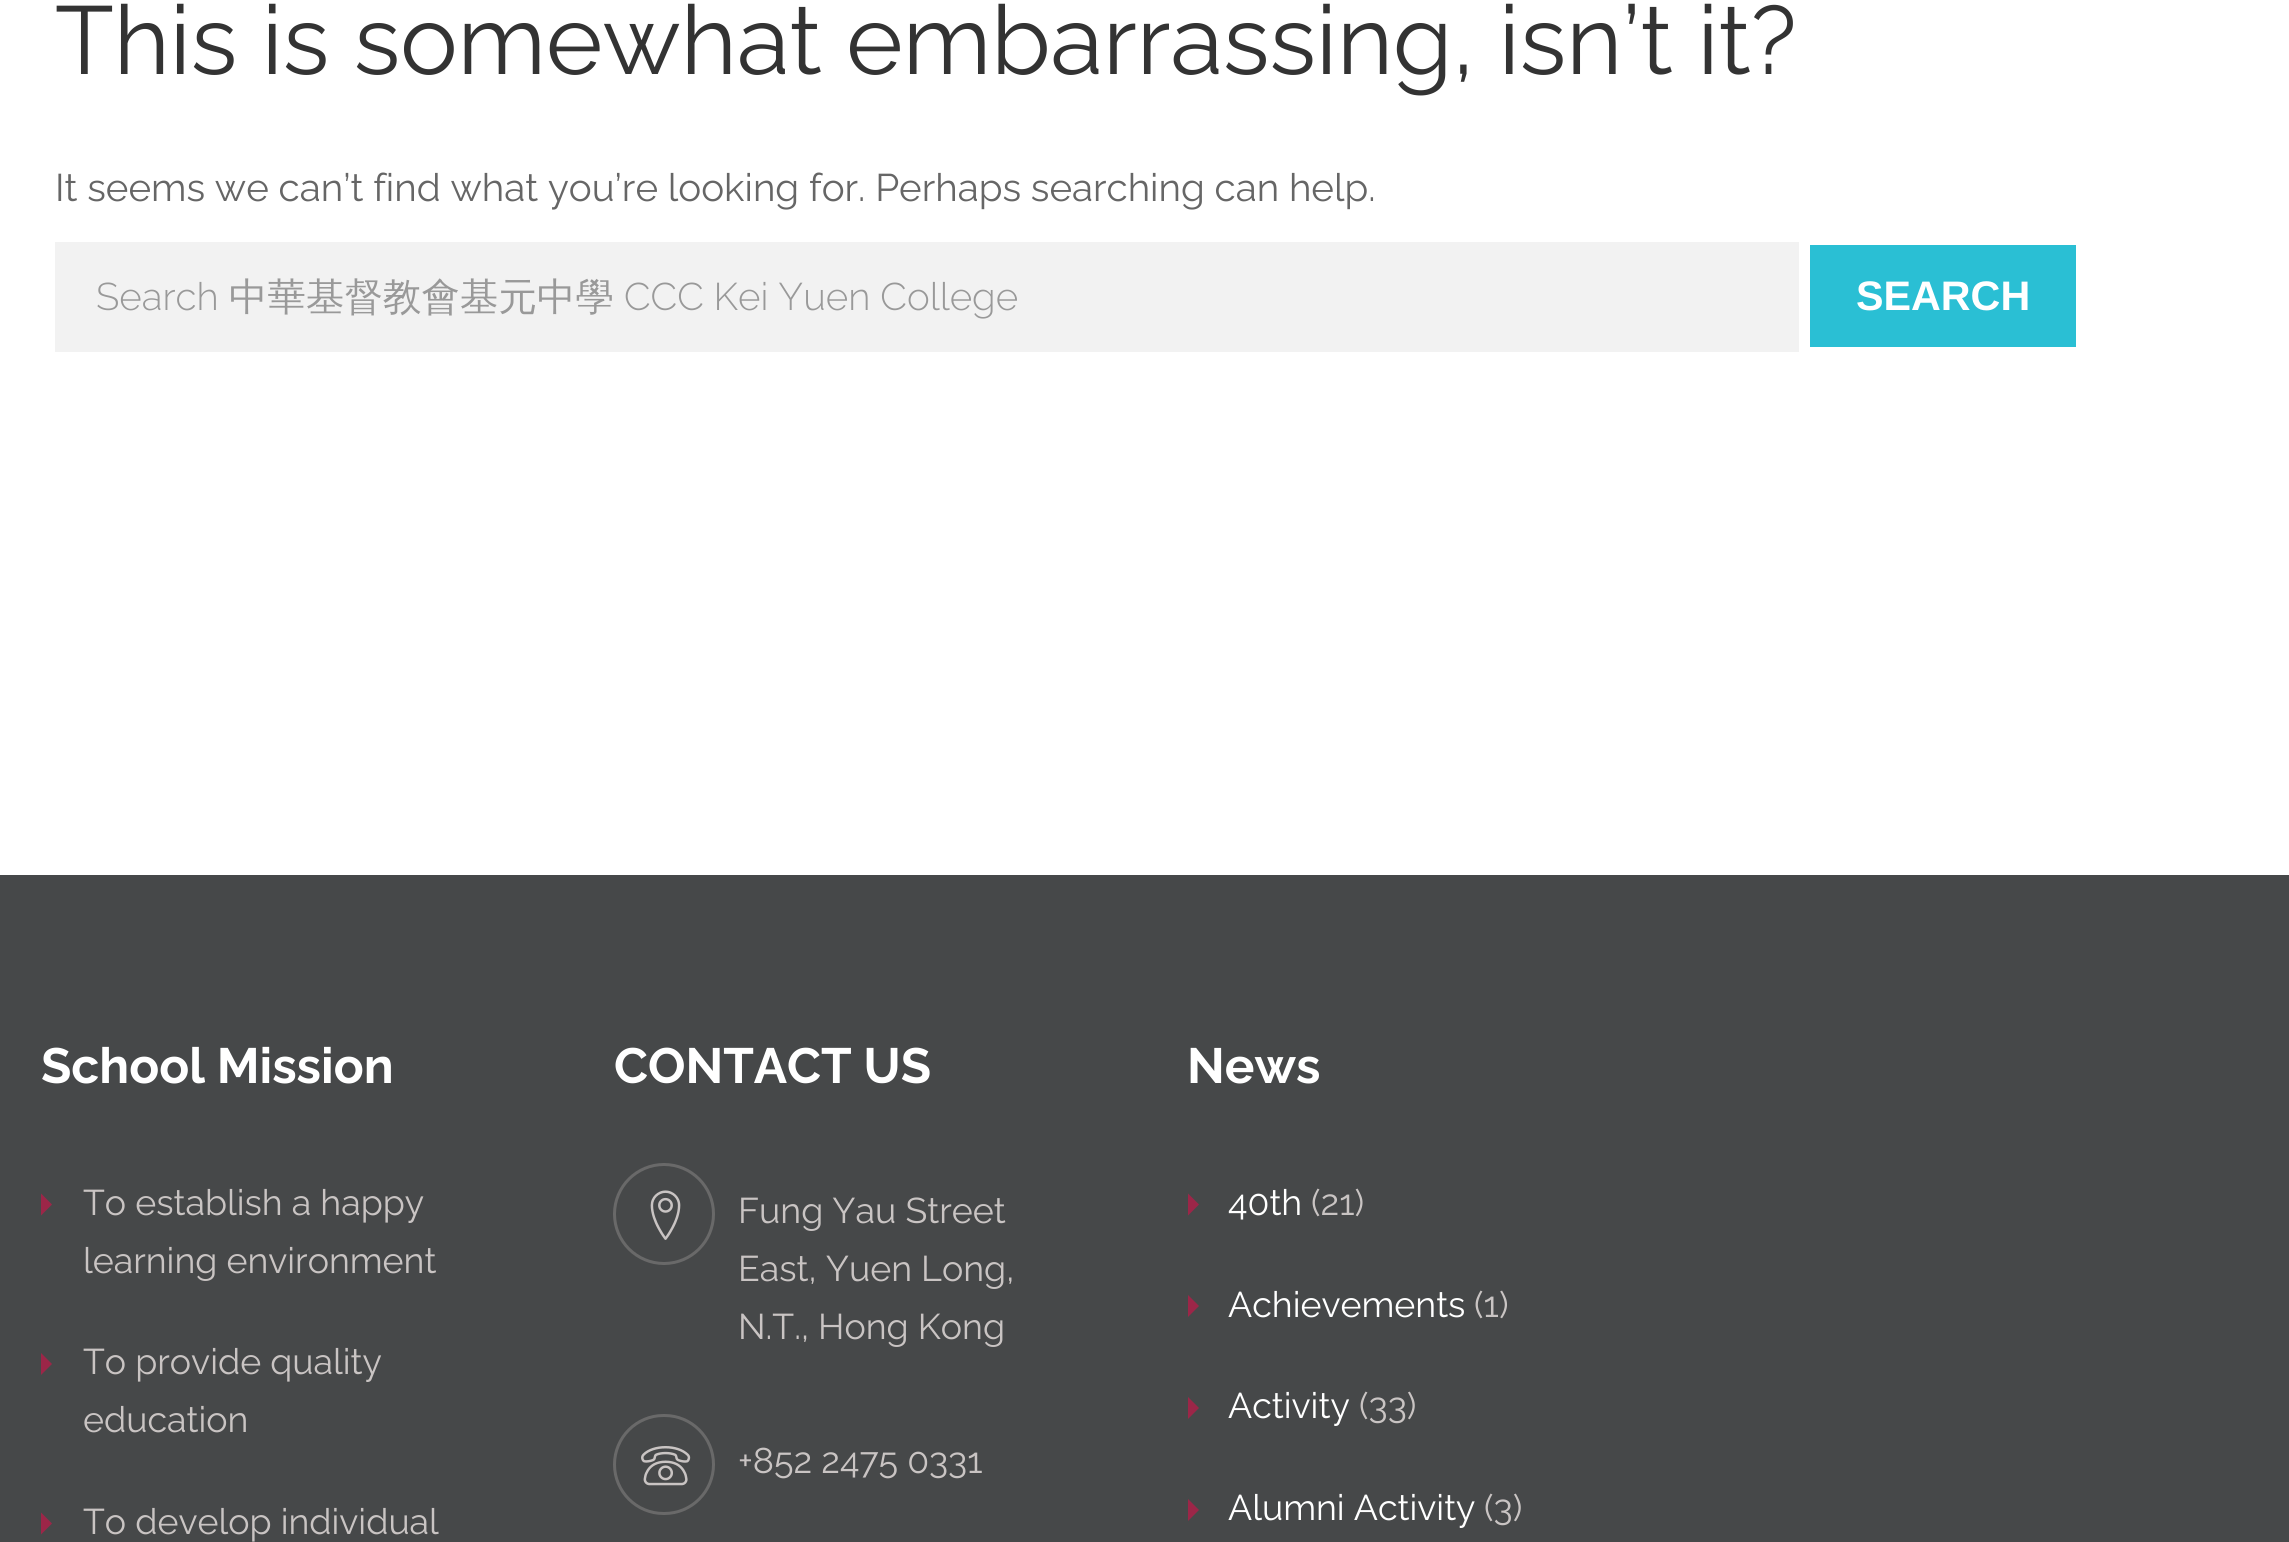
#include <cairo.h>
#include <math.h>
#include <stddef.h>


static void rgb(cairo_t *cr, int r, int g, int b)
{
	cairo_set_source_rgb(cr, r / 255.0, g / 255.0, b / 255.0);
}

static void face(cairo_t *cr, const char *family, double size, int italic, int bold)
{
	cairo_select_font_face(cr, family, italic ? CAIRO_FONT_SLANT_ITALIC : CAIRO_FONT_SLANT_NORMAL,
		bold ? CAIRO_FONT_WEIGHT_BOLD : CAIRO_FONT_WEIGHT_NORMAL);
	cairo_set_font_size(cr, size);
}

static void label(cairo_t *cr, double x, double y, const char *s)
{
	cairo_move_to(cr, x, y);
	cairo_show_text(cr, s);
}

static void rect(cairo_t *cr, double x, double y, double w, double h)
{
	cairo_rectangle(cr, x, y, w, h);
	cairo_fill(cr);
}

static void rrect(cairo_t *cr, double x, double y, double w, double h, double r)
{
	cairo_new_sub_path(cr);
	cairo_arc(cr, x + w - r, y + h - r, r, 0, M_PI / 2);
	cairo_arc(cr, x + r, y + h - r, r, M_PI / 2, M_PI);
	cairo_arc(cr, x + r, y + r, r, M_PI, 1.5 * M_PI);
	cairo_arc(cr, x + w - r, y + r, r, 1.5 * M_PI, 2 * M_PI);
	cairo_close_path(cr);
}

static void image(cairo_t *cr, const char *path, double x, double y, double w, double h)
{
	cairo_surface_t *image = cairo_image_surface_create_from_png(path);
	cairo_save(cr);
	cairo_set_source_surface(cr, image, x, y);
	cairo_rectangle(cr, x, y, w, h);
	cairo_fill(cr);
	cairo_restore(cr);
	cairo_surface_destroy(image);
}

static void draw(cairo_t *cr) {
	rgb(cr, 255, 255, 255);
	cairo_paint(cr);
	face(cr, "Raleway", 96.25, 0, 0);
	rgb(cr, 51, 51, 51);
	label(cr, 55, 74, "This is somewhat embarrassing, isn’t it?");
	face(cr, "Raleway", 38.5, 0, 0);
	rgb(cr, 102, 102, 102);
	label(cr, 55, 201, "It seems we can’t find what you’re looking for. Perhaps searching can help.");
	rgb(cr, 242, 242, 242);
	rect(cr, 55, 242, 1744, 110);
	face(cr, "Raleway Light", 38.5, 0, 0);
	rgb(cr, 153, 153, 153);
	label(cr, 96, 310, "Search");
	face(cr, "WenQuanYi Zen Hei Medium", 38.5, 0, 0);
	label(cr, 229, 310, "中華基督教會基元中學");
	face(cr, "Raleway Light", 38.5, 0, 0);
	label(cr, 624, 310, "CCC Kei Yuen College");
	rgb(cr, 42, 191, 212);
	rect(cr, 1810, 245, 266, 102);
	face(cr, "Liberation Sans", 41.25, 0, 1);
	rgb(cr, 255, 255, 255);
	label(cr, 1856, 310, "SEARCH");
	rgb(cr, 70, 72, 73);
	rect(cr, 0, 875, 2289, 667);
	face(cr, "Raleway", 49.5, 0, 1);
	rgb(cr, 255, 255, 255);
	label(cr, 41, 1083, "School Mission");
	rgb(cr, 156, 38, 72);
	cairo_new_path(cr);
	cairo_move_to(cr, 41, 1215.5);
	cairo_line_to(cr, 41, 1193.5);
	cairo_line_to(cr, 52, 1204.5);
	cairo_close_path(cr);
	cairo_fill(cr);
	face(cr, "Raleway", 35.75, 0, 0);
	rgb(cr, 201, 196, 195);
	label(cr, 83, 1215, "To establish a happy");
	label(cr, 83, 1273, "learning environment");
	rgb(cr, 156, 38, 72);
	cairo_new_path(cr);
	cairo_move_to(cr, 41, 1375);
	cairo_line_to(cr, 41, 1353);
	cairo_line_to(cr, 52, 1364);
	cairo_close_path(cr);
	cairo_fill(cr);
	rgb(cr, 201, 196, 195);
	label(cr, 83, 1374, "To provide quality");
	label(cr, 83, 1432, "education");
	rgb(cr, 156, 38, 72);
	cairo_new_path(cr);
	cairo_move_to(cr, 41, 1534.5);
	cairo_line_to(cr, 41, 1512.5);
	cairo_line_to(cr, 52, 1523.5);
	cairo_close_path(cr);
	cairo_fill(cr);
	rgb(cr, 201, 196, 195);
	label(cr, 83, 1534, "To develop individual");
	face(cr, "Raleway", 49.5, 0, 1);
	rgb(cr, 255, 255, 255);
	label(cr, 614, 1083, "CONTACT US");
	cairo_new_path(cr);
	cairo_arc(cr, 664, 1214, 49.5, 0, 2 * M_PI);
	rgb(cr, 105, 105, 105);
	cairo_set_line_width(cr, 3);
	cairo_stroke(cr);
	image(cr, "image0.png", 650, 1190, 31, 50);
	face(cr, "Raleway", 35.75, 0, 0);
	rgb(cr, 201, 196, 195);
	label(cr, 738, 1223, "Fung Yau Street");
	label(cr, 738, 1281, "East, Yuen Long,");
	label(cr, 738, 1339, "N.T., Hong Kong");
	rrect(cr, 614.5, 1415.5, 99, 98, 49);
	rgb(cr, 105, 105, 105);
	cairo_stroke(cr);
	image(cr, "image1.png", 641, 1446, 50, 40);
	rgb(cr, 201, 196, 195);
	label(cr, 738, 1473, "+852 2475 0331");
	face(cr, "Raleway", 49.5, 0, 1);
	rgb(cr, 255, 255, 255);
	label(cr, 1187, 1083, "News");
	rgb(cr, 156, 38, 72);
	cairo_new_path(cr);
	cairo_move_to(cr, 1188, 1215.5);
	cairo_line_to(cr, 1188, 1193.5);
	cairo_line_to(cr, 1199, 1204.5);
	cairo_close_path(cr);
	cairo_fill(cr);
	face(cr, "Raleway", 35.75, 0, 0);
	rgb(cr, 255, 255, 255);
	label(cr, 1228, 1215, "40th");
	rgb(cr, 201, 196, 195);
	label(cr, 1311, 1215, "(21)");
	rgb(cr, 156, 38, 72);
	cairo_new_path(cr);
	cairo_move_to(cr, 1188, 1317);
	cairo_line_to(cr, 1188, 1295);
	cairo_line_to(cr, 1199, 1306);
	cairo_close_path(cr);
	cairo_fill(cr);
	rgb(cr, 255, 255, 255);
	label(cr, 1228, 1317, "Achievements");
	rgb(cr, 201, 196, 195);
	label(cr, 1474, 1317, "(1)");
	rgb(cr, 156, 38, 72);
	cairo_new_path(cr);
	cairo_move_to(cr, 1188, 1419);
	cairo_line_to(cr, 1188, 1397);
	cairo_line_to(cr, 1199, 1408);
	cairo_close_path(cr);
	cairo_fill(cr);
	rgb(cr, 255, 255, 255);
	label(cr, 1228, 1418, "Activity");
	rgb(cr, 201, 196, 195);
	label(cr, 1359, 1418, "(33)");
	rgb(cr, 156, 38, 72);
	cairo_new_path(cr);
	cairo_move_to(cr, 1188, 1521);
	cairo_line_to(cr, 1188, 1499);
	cairo_line_to(cr, 1199, 1510);
	cairo_close_path(cr);
	cairo_fill(cr);
	rgb(cr, 255, 255, 255);
	label(cr, 1228, 1520, "Alumni Activity");
	rgb(cr, 201, 196, 195);
	label(cr, 1484, 1520, "(3)");
}

int main(void) {
	cairo_surface_t *surface = cairo_image_surface_create(CAIRO_FORMAT_RGB24, 2289, 1542);
	cairo_t *cr = cairo_create(surface);
	cairo_font_options_t *options = cairo_font_options_create();
	cairo_font_options_set_hint_metrics(options, CAIRO_HINT_METRICS_OFF);
	cairo_font_options_set_hint_style(options, CAIRO_HINT_STYLE_NONE);
	cairo_set_font_options(cr, options);
	cairo_set_miter_limit(cr, 4);
	draw(cr);
	cairo_surface_write_to_png(surface, "render.png");
	cairo_font_options_destroy(options);
	cairo_destroy(cr);
	cairo_surface_destroy(surface);
	return 0;
}
